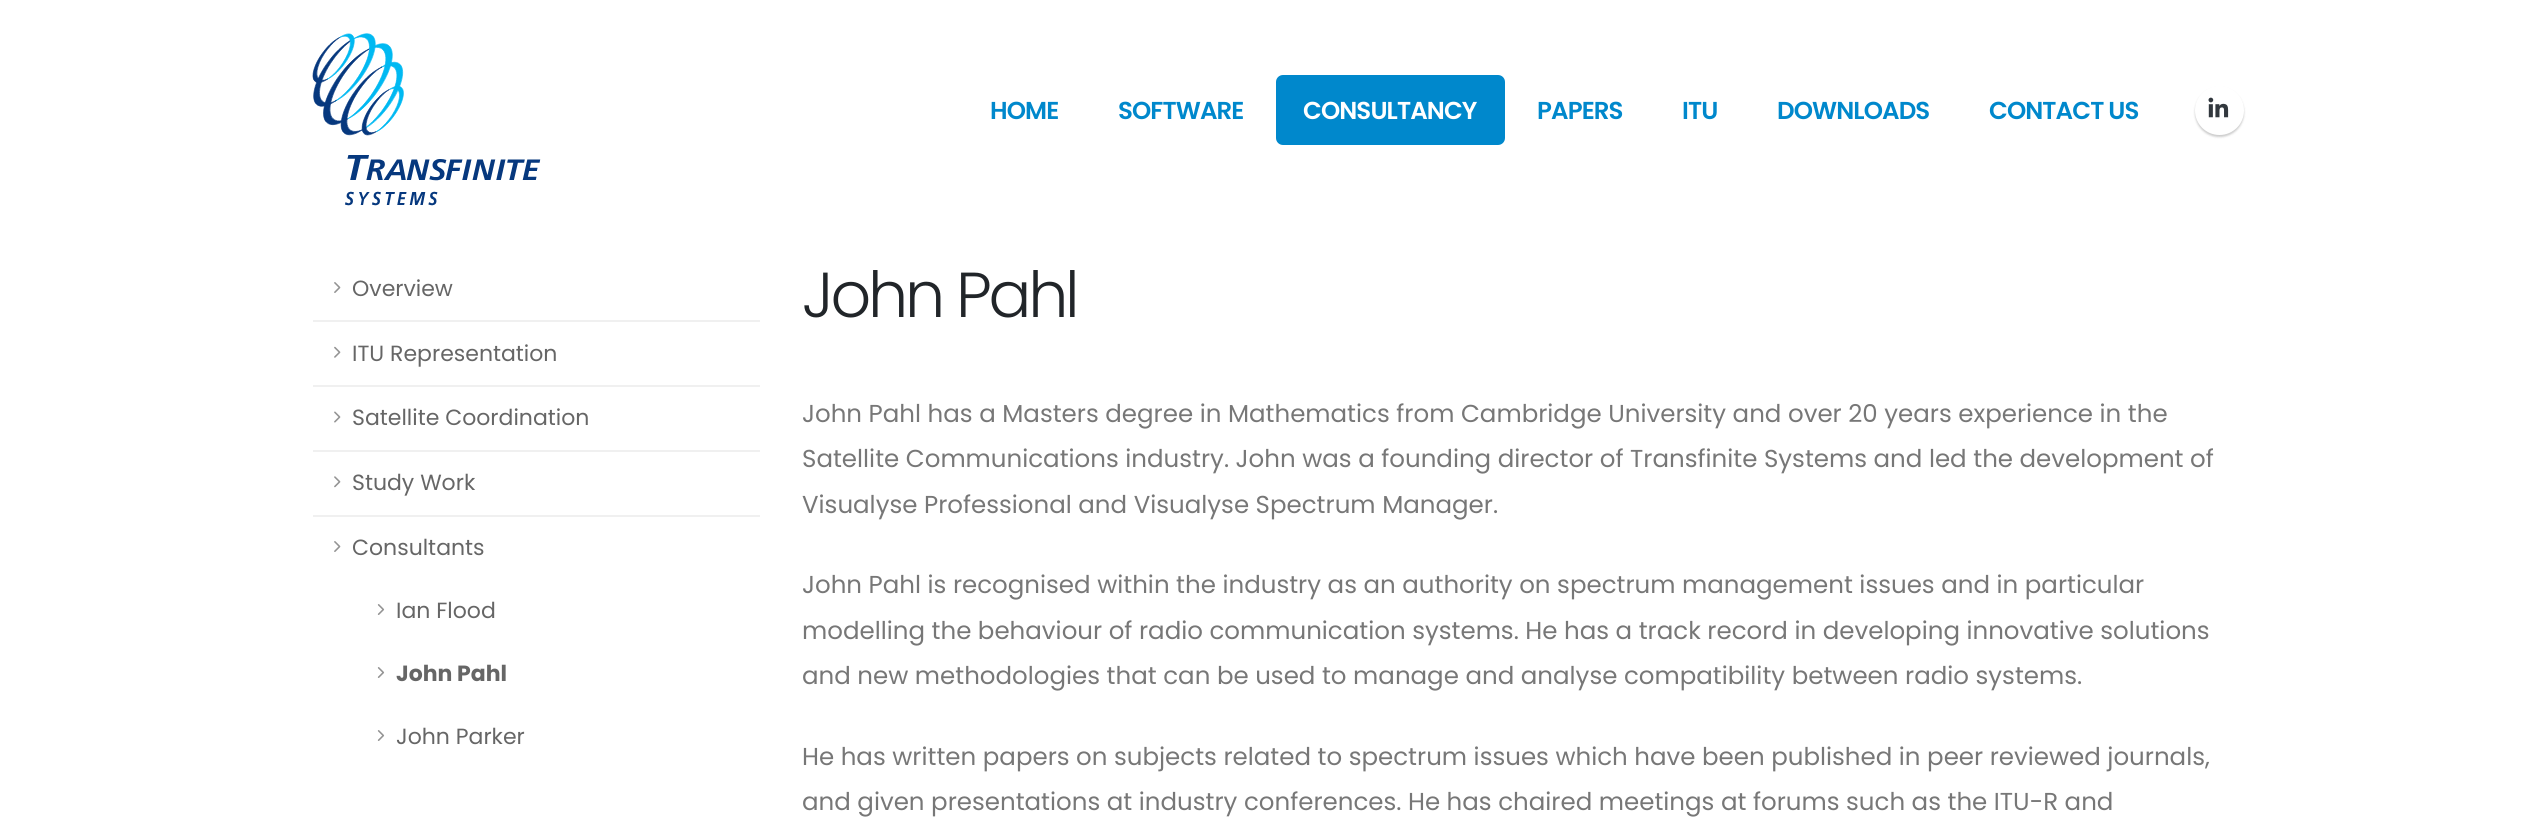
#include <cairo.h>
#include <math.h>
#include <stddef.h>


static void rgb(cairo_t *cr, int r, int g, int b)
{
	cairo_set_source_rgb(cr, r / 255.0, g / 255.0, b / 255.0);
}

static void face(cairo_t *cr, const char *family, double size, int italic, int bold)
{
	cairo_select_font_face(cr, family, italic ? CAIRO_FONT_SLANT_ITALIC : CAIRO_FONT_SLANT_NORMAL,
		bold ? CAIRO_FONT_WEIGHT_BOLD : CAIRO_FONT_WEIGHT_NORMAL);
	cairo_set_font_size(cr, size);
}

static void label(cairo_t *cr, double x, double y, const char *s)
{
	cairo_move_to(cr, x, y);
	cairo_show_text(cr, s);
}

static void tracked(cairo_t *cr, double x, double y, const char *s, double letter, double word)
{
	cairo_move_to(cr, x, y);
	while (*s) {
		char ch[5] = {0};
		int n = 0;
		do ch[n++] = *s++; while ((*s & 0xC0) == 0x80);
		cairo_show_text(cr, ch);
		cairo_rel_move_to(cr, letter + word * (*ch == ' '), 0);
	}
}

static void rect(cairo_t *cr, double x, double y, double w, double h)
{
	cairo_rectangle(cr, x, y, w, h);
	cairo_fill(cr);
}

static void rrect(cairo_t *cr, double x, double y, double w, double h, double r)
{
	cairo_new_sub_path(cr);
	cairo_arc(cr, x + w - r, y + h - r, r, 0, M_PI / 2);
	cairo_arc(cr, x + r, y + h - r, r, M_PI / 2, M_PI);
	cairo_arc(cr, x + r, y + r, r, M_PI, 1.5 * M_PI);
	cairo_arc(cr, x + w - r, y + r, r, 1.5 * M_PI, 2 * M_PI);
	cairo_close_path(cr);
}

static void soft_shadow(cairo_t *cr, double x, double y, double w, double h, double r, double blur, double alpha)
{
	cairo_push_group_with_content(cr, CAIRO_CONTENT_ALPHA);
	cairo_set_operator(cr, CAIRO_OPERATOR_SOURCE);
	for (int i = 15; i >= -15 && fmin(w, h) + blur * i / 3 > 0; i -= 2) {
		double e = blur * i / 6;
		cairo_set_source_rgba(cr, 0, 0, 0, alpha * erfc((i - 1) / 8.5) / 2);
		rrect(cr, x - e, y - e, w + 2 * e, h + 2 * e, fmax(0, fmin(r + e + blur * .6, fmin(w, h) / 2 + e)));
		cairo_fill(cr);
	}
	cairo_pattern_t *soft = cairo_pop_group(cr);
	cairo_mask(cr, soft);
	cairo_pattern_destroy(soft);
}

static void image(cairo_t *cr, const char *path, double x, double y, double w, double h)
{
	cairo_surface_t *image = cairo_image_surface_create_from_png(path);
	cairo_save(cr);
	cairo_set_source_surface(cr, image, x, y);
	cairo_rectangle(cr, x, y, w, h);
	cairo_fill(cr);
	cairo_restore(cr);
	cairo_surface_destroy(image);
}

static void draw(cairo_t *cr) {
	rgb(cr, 255, 255, 255);
	cairo_paint(cr);
	image(cr, "image0.png", 312, 33, 229, 173);
	face(cr, "Poppins SemiBold", 24.5, 0, 0);
	rgb(cr, 0, 136, 204);
	tracked(cr, 990, 119, "HOME", -0.9, 0);
	tracked(cr, 1118, 119, "SOFTWARE", -0.9, 0);
	rrect(cr, 1276, 75, 229, 70, 7);
	cairo_fill(cr);
	rgb(cr, 255, 255, 255);
	tracked(cr, 1303, 119, "CONSULTANCY", -0.9, 0);
	rgb(cr, 0, 136, 204);
	tracked(cr, 1537, 119, "PAPERS", -0.9, 0);
	tracked(cr, 1682, 119, "ITU", -0.9, 0);
	tracked(cr, 1777, 119, "DOWNLOADS", -0.9, 0);
	tracked(cr, 1989, 119, "CONTACT US", -0.9, 0);
	rgb(cr, 0, 0, 0);
	soft_shadow(cr, 2195, 88, 49, 49, 24.5, 1, 0.2);
	rgb(cr, 255, 255, 255);
	cairo_arc(cr, 2219.5, 110.5, 24.5, 0, 2 * M_PI);
	cairo_fill(cr);
	image(cr, "image1.png", 2208, 97, 21, 21);
	rgb(cr, 240, 240, 240);
	rect(cr, 313, 320, 447, 2);
	image(cr, "image2.png", 334, 282, 7, 11);
	face(cr, "Poppins", 22, 0, 0);
	rgb(cr, 102, 102, 102);
	label(cr, 352, 296, "Overview");
	rgb(cr, 240, 240, 240);
	rect(cr, 313, 385, 447, 2);
	image(cr, "image3.png", 334, 346, 7, 12);
	rgb(cr, 102, 102, 102);
	label(cr, 352, 361, "ITU Representation");
	rgb(cr, 240, 240, 240);
	rect(cr, 313, 450, 447, 2);
	image(cr, "image4.png", 334, 411, 7, 12);
	rgb(cr, 102, 102, 102);
	label(cr, 352, 425, "Satellite Coordination");
	rgb(cr, 240, 240, 240);
	rect(cr, 313, 515, 447, 2);
	image(cr, "image5.png", 334, 476, 7, 12);
	rgb(cr, 102, 102, 102);
	label(cr, 352, 490, "Study Work");
	image(cr, "image2.png", 334, 541, 7, 11);
	label(cr, 352, 555, "Consultants");
	image(cr, "image6.png", 377, 604, 8, 11);
	label(cr, 396, 618, "Ian Flood");
	image(cr, "image6.png", 377, 667, 8, 11);
	face(cr, "Poppins", 22, 0, 1);
	label(cr, 396, 681, "John Pahl");
	image(cr, "image6.png", 377, 730, 8, 11);
	face(cr, "Poppins", 22, 0, 0);
	label(cr, 396, 744, "John Parker");
	face(cr, "Poppins Light", 63.5, 0, 0);
	rgb(cr, 33, 37, 41);
	tracked(cr, 802, 317, "John Pahl", -3.25, 0);
	face(cr, "Poppins", 24.5, 0, 0);
	rgb(cr, 119, 119, 119);
	label(cr, 802, 422, "John Pahl has a Masters degree in Mathematics from Cambridge University and over 20 years experience in the");
	label(cr, 802, 467, "Satellite Communications industry. John was a founding director of Transfinite Systems and led the development of");
	label(cr, 802, 513, "Visualyse Professional and Visualyse Spectrum Manager.");
	label(cr, 802, 593, "John Pahl is recognised within the industry as an authority on spectrum management issues and in particular");
	label(cr, 802, 639, "modelling the behaviour of radio communication systems. He has a track record in developing innovative solutions");
	label(cr, 802, 684, "and new methodologies that can be used to manage and analyse compatibility between radio systems.");
	label(cr, 802, 765, "He has written papers on subjects related to spectrum issues which have been published in peer reviewed journals,");
	label(cr, 802, 810, "and given presentations at industry conferences. He has chaired meetings at forums such as the ITU-R and");
}

int main(void) {
	cairo_surface_t *surface = cairo_image_surface_create(CAIRO_FORMAT_RGB24, 2537, 829);
	cairo_t *cr = cairo_create(surface);
	cairo_font_options_t *options = cairo_font_options_create();
	cairo_font_options_set_hint_metrics(options, CAIRO_HINT_METRICS_OFF);
	cairo_font_options_set_hint_style(options, CAIRO_HINT_STYLE_NONE);
	cairo_set_font_options(cr, options);
	cairo_set_miter_limit(cr, 4);
	draw(cr);
	cairo_surface_write_to_png(surface, "render.png");
	cairo_font_options_destroy(options);
	cairo_destroy(cr);
	cairo_surface_destroy(surface);
	return 0;
}
